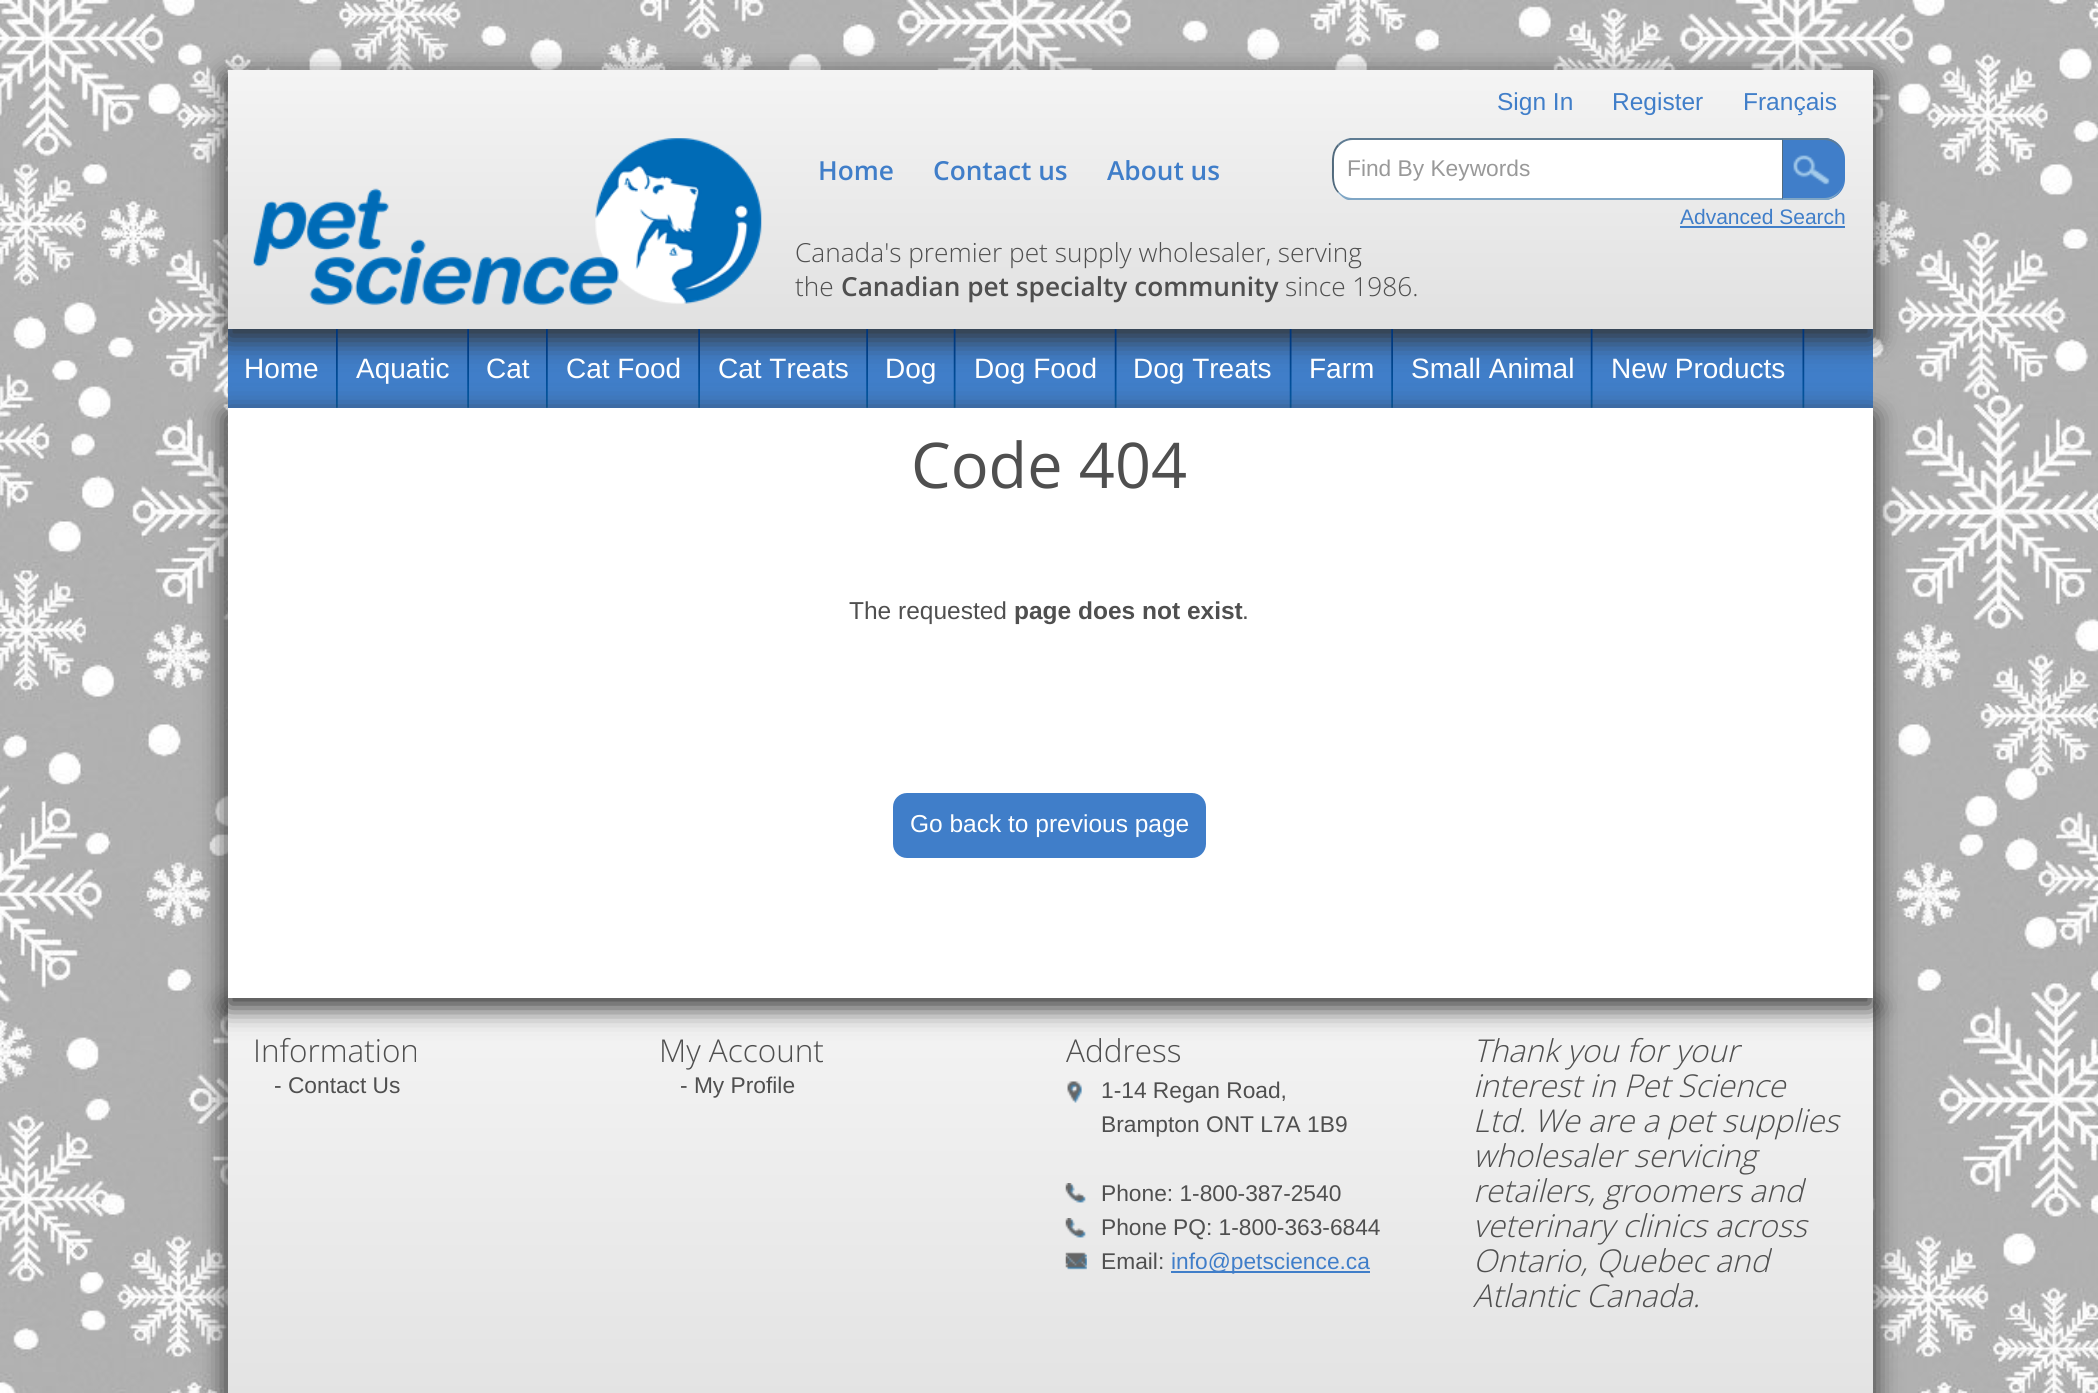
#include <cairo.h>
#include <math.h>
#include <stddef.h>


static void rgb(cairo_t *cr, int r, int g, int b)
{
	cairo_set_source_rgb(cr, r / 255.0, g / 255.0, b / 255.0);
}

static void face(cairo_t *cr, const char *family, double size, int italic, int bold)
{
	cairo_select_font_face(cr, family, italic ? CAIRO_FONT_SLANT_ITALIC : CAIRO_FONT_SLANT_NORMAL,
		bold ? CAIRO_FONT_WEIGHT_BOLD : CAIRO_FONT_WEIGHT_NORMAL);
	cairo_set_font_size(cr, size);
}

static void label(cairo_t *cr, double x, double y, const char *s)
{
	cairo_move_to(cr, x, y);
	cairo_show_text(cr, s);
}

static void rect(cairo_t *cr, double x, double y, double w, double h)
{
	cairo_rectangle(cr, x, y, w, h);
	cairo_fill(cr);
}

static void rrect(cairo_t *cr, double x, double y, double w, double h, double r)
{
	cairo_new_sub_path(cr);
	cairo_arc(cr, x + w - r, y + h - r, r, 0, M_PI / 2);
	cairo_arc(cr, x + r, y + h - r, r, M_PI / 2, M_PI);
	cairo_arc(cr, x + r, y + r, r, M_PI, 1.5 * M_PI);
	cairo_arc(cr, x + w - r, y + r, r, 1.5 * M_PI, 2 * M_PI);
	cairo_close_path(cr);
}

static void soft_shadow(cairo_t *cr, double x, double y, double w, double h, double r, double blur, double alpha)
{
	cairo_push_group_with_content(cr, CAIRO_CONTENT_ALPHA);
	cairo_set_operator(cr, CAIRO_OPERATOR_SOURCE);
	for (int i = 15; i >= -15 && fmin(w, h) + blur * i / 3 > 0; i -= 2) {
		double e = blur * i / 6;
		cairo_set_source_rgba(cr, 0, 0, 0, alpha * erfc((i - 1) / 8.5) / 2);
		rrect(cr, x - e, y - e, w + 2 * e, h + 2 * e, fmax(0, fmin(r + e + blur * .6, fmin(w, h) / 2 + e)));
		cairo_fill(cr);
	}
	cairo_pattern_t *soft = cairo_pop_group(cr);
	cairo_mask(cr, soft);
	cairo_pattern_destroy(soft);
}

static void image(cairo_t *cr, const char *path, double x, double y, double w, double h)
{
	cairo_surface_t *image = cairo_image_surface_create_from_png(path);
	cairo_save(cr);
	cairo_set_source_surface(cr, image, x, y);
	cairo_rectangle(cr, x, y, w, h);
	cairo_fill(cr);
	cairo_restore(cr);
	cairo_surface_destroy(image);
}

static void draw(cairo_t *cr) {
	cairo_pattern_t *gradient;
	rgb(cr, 255, 255, 255);
	cairo_paint(cr);
	image(cr, "image0.png", 0, 0, 2098, 1393);
	rgb(cr, 64, 126, 201);
	rect(cr, 228, 329, 1645, 79);
	rgb(cr, 51, 51, 51);
	soft_shadow(cr, 226, 77, 1648, 263, 0, 13, 1);
	gradient = cairo_pattern_create_linear(1050, 70, 1050, 329);
	cairo_pattern_add_color_stop_rgba(gradient, 0, 0.957, 0.957, 0.957, 1);
	cairo_pattern_add_color_stop_rgba(gradient, 1, 0.882, 0.882, 0.882, 1);
	cairo_set_source(cr, gradient);
	cairo_pattern_destroy(gradient);
	rect(cr, 228, 70, 1645, 259);
	face(cr, "Liberation Sans", 24.5, 0, 0);
	rgb(cr, 64, 126, 201);
	label(cr, 1497, 110, "Sign In");
	label(cr, 1612, 110, "Register");
	label(cr, 1743, 110, "Français");
	image(cr, "image1.png", 253, 138, 509, 168);
	face(cr, "Open Sans SemiBold", 26.25, 0, 0);
	label(cr, 818, 180, "Home");
	label(cr, 933, 180, "Contact us");
	label(cr, 1107, 180, "About us");
	rgb(cr, 255, 255, 255);
	cairo_new_path(cr);
	cairo_move_to(cr, 1353, 138);
	cairo_line_to(cr, 1782, 138);
	cairo_line_to(cr, 1782, 200);
	cairo_line_to(cr, 1353, 200);
	cairo_curve_to(cr, 1341.5, 200, 1332, 190.5, 1332, 179);
	cairo_line_to(cr, 1332, 159);
	cairo_curve_to(cr, 1332, 147.5, 1341.5, 138, 1353, 138);
	cairo_close_path(cr);
	cairo_fill(cr);
	rgb(cr, 95, 124, 147);
	cairo_new_path(cr);
	cairo_move_to(cr, 1353, 140);
	cairo_curve_to(cr, 1347, 140, 1343, 142, 1339, 146);
	cairo_line_to(cr, 1338, 144);
	cairo_curve_to(cr, 1341, 141, 1345, 139, 1350, 138);
	cairo_line_to(cr, 1782, 138);
	cairo_line_to(cr, 1782, 140);
	cairo_close_path(cr);
	cairo_fill(cr);
	rgb(cr, 127, 166, 197);
	cairo_new_path(cr);
	cairo_move_to(cr, 1782, 200);
	cairo_line_to(cr, 1348, 200);
	cairo_curve_to(cr, 1344, 199, 1341, 196, 1338, 193);
	cairo_line_to(cr, 1339, 192);
	cairo_curve_to(cr, 1343, 196, 1347, 198, 1353, 198);
	cairo_line_to(cr, 1782, 198);
	cairo_close_path(cr);
	cairo_fill(cr);
	rgb(cr, 81, 106, 125);
	cairo_new_path(cr);
	cairo_move_to(cr, 1338, 193);
	cairo_curve_to(cr, 1331, 186, 1332, 177, 1332, 168);
	cairo_curve_to(cr, 1332, 160, 1331, 151, 1338, 144);
	cairo_line_to(cr, 1339, 146);
	cairo_curve_to(cr, 1333, 152, 1334, 160, 1334, 168);
	cairo_curve_to(cr, 1334, 177, 1333, 185, 1339, 192);
	cairo_close_path(cr);
	cairo_fill(cr);
	face(cr, "Liberation Sans", 22.75, 0, 0);
	rgb(cr, 153, 153, 153);
	label(cr, 1347, 176, "Find By Keywords");
	rgb(cr, 64, 126, 201);
	cairo_new_path(cr);
	cairo_move_to(cr, 1782, 138);
	cairo_line_to(cr, 1824, 138);
	cairo_curve_to(cr, 1835.5, 138, 1845, 147.5, 1845, 159);
	cairo_line_to(cr, 1845, 179);
	cairo_curve_to(cr, 1845, 190.5, 1835.5, 200, 1824, 200);
	cairo_line_to(cr, 1782, 200);
	cairo_close_path(cr);
	cairo_fill(cr);
	rgb(cr, 95, 124, 147);
	cairo_new_path(cr);
	cairo_move_to(cr, 1782, 139);
	cairo_line_to(cr, 1782, 138);
	cairo_line_to(cr, 1827, 138);
	cairo_curve_to(cr, 1837, 140, 1844, 149, 1844, 159);
	cairo_curve_to(cr, 1844, 149, 1835, 140, 1824, 140);
	cairo_line_to(cr, 1783, 140);
	cairo_close_path(cr);
	cairo_fill(cr);
	rgb(cr, 127, 166, 197);
	cairo_new_path(cr);
	cairo_move_to(cr, 1782, 200);
	cairo_line_to(cr, 1783, 198);
	cairo_line_to(cr, 1824, 198);
	cairo_curve_to(cr, 1835, 198, 1844, 189, 1844, 178);
	cairo_curve_to(cr, 1844, 188, 1837, 197, 1828, 200);
	cairo_close_path(cr);
	cairo_fill(cr);
	rgb(cr, 81, 106, 125);
	cairo_new_path(cr);
	cairo_move_to(cr, 1783, 140);
	cairo_line_to(cr, 1783, 198);
	cairo_line_to(cr, 1782, 199);
	cairo_line_to(cr, 1782, 139);
	cairo_close_path(cr);
	cairo_fill(cr);
	image(cr, "image2.png", 1793, 155, 37, 30);
	face(cr, "Liberation Sans", 21, 0, 0);
	rgb(cr, 64, 126, 201);
	label(cr, 1680, 224, "Advanced Search");
	rect(cr, 1680, 226, 165, 2);
	face(cr, "Open Sans Light", 26.25, 0, 0);
	rgb(cr, 79, 79, 79);
	label(cr, 795, 262, "Canada's premier pet supply wholesaler, serving");
	label(cr, 795, 296, "the");
	face(cr, "Open Sans SemiBold", 26.25, 0, 0);
	label(cr, 841, 296, "Canadian pet specialty community");
	face(cr, "Open Sans Light", 26.25, 0, 0);
	label(cr, 1285, 296, "since 1986.");
	image(cr, "image3.png", 336, 329, 2, 79);
	face(cr, "Liberation Sans", 28, 0, 0);
	rgb(cr, 255, 255, 255);
	label(cr, 244, 378, "Home");
	image(cr, "image4.png", 467, 329, 2, 79);
	label(cr, 356, 378, "Aquatic");
	image(cr, "image3.png", 546, 329, 2, 79);
	label(cr, 486, 378, "Cat");
	image(cr, "image4.png", 698, 329, 2, 79);
	label(cr, 566, 378, "Cat Food");
	image(cr, "image4.png", 866, 329, 2, 79);
	label(cr, 718, 378, "Cat Treats");
	image(cr, "image5.png", 953, 329, 3, 79);
	label(cr, 885, 378, "Dog");
	image(cr, "image5.png", 1114, 329, 3, 79);
	label(cr, 974, 378, "Dog Food");
	image(cr, "image5.png", 1289, 329, 3, 79);
	label(cr, 1133, 378, "Dog Treats");
	image(cr, "image4.png", 1391, 329, 2, 79);
	label(cr, 1309, 378, "Farm");
	image(cr, "image5.png", 1590, 329, 3, 79);
	label(cr, 1411, 378, "Small Animal");
	image(cr, "image6.png", 1802, 329, 3, 79);
	label(cr, 1611, 378, "New Products");
	rgb(cr, 51, 51, 51);
	soft_shadow(cr, 226, 1005, 1648, 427, 0, 13, 1);
	gradient = cairo_pattern_create_linear(1050, 998, 1050, 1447);
	cairo_pattern_add_color_stop_rgba(gradient, 0, 0.957, 0.957, 0.957, 1);
	cairo_pattern_add_color_stop_rgba(gradient, 1, 0.882, 0.882, 0.882, 1);
	cairo_set_source(cr, gradient);
	cairo_pattern_destroy(gradient);
	rect(cr, 228, 998, 1645, 395);
	rgb(cr, 51, 51, 51);
	soft_shadow(cr, 226, 415, 1648, 593, 0, 13, 1);
	rgb(cr, 255, 255, 255);
	rect(cr, 228, 408, 1645, 590);
	face(cr, "Open Sans", 63, 0, 0);
	rgb(cr, 79, 79, 79);
	label(cr, 911, 488, "Code 404");
	face(cr, "Liberation Sans", 24.5, 0, 0);
	label(cr, 849, 619, "The requested");
	face(cr, "Liberation Sans", 24.5, 0, 1);
	label(cr, 1014, 619, "page does not exist");
	face(cr, "Liberation Sans", 24.5, 0, 0);
	label(cr, 1242, 619, ".");
	rgb(cr, 64, 126, 201);
	rrect(cr, 893, 793, 313, 65, 14);
	cairo_fill(cr);
	rgb(cr, 255, 255, 255);
	label(cr, 910, 832, "Go back to previous page");
	face(cr, "Open Sans Light", 31.5, 0, 0);
	rgb(cr, 79, 79, 79);
	label(cr, 253, 1062, "Information");
	face(cr, "Liberation Sans", 22.75, 0, 0);
	label(cr, 274, 1093, "- Contact Us");
	face(cr, "Open Sans Light", 31.5, 0, 0);
	label(cr, 659, 1062, "My Account");
	face(cr, "Liberation Sans", 22.75, 0, 0);
	label(cr, 680, 1093, "- My Profile");
	face(cr, "Open Sans Light", 31.5, 0, 0);
	label(cr, 1066, 1062, "Address");
	image(cr, "image7.png", 1067, 1081, 15, 22);
	face(cr, "Liberation Sans", 22.75, 0, 0);
	label(cr, 1101, 1098, "1-14 Regan Road,");
	label(cr, 1101, 1132, "Brampton ONT L7A 1B9");
	image(cr, "image8.png", 1065, 1183, 21, 20);
	label(cr, 1101, 1201, "Phone: 1-800-387-2540");
	image(cr, "image9.png", 1065, 1218, 21, 20);
	label(cr, 1101, 1235, "Phone PQ: 1-800-363-6844");
	image(cr, "image10.png", 1065, 1252, 22, 18);
	label(cr, 1101, 1269, "Email:");
	rgb(cr, 64, 126, 201);
	rect(cr, 1171, 1271, 199, 2);
	label(cr, 1171, 1269, "info@petscience.ca");
	face(cr, "Open Sans Light", 31.5, 1, 0);
	rgb(cr, 79, 79, 79);
	label(cr, 1473, 1062, "Thank you for your");
	label(cr, 1473, 1097, "interest in Pet Science");
	label(cr, 1473, 1132, "Ltd. We are a pet supplies");
	label(cr, 1473, 1167, "wholesaler servicing");
	label(cr, 1473, 1202, "retailers, groomers and");
	label(cr, 1473, 1237, "veterinary clinics across");
	label(cr, 1473, 1272, "Ontario, Quebec and");
	label(cr, 1473, 1307, "Atlantic Canada.");
}

int main(void) {
	cairo_surface_t *surface = cairo_image_surface_create(CAIRO_FORMAT_RGB24, 2098, 1393);
	cairo_t *cr = cairo_create(surface);
	cairo_font_options_t *options = cairo_font_options_create();
	cairo_font_options_set_hint_metrics(options, CAIRO_HINT_METRICS_OFF);
	cairo_font_options_set_hint_style(options, CAIRO_HINT_STYLE_NONE);
	cairo_set_font_options(cr, options);
	cairo_set_miter_limit(cr, 4);
	draw(cr);
	cairo_surface_write_to_png(surface, "render.png");
	cairo_font_options_destroy(options);
	cairo_destroy(cr);
	cairo_surface_destroy(surface);
	return 0;
}
